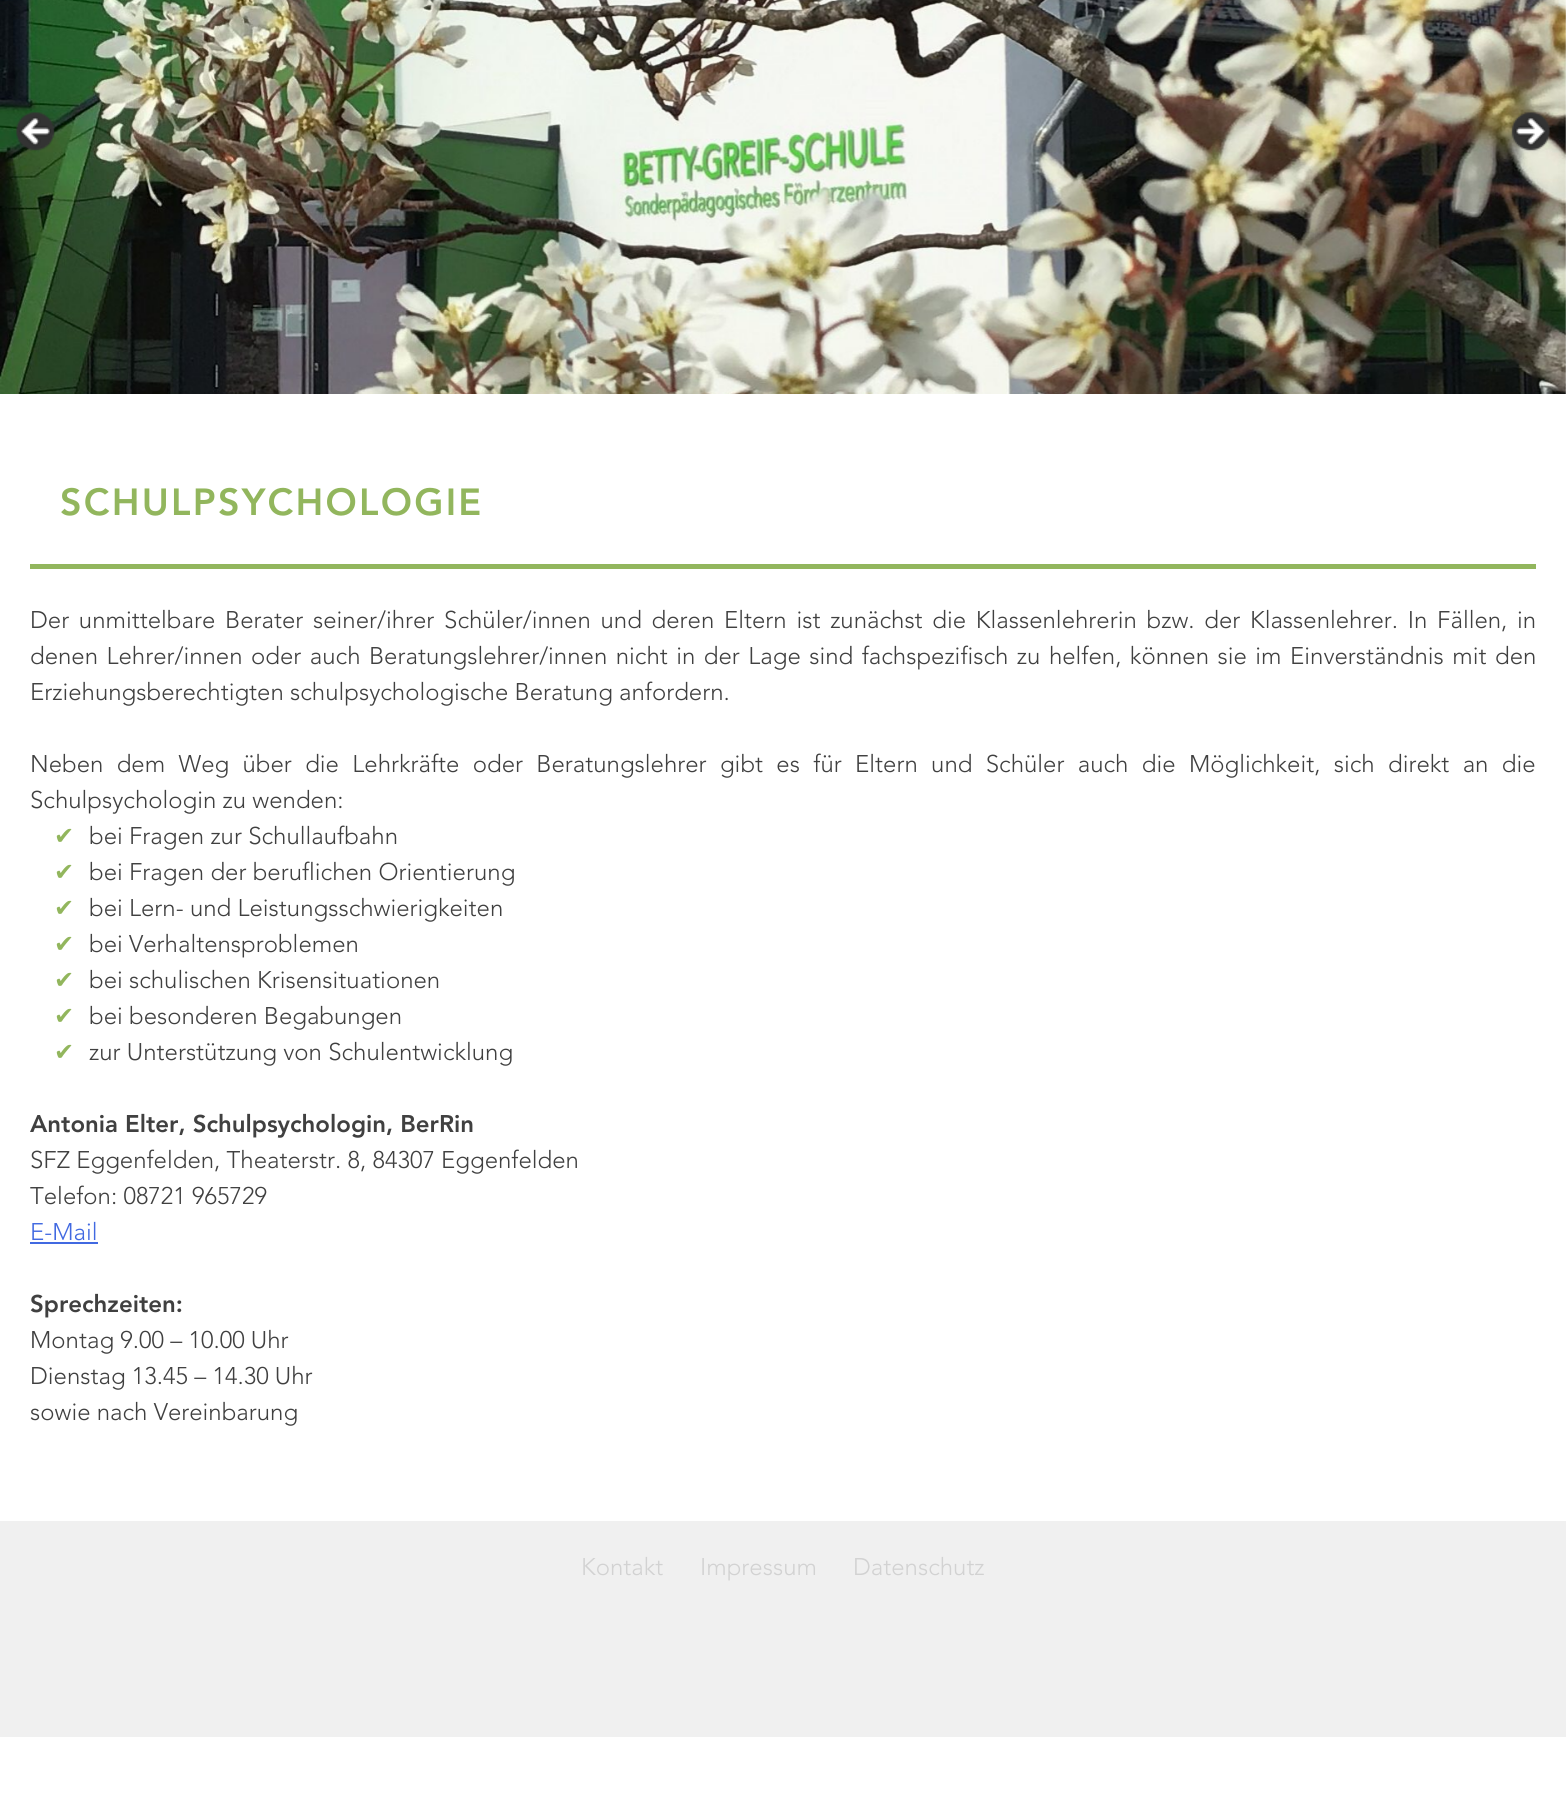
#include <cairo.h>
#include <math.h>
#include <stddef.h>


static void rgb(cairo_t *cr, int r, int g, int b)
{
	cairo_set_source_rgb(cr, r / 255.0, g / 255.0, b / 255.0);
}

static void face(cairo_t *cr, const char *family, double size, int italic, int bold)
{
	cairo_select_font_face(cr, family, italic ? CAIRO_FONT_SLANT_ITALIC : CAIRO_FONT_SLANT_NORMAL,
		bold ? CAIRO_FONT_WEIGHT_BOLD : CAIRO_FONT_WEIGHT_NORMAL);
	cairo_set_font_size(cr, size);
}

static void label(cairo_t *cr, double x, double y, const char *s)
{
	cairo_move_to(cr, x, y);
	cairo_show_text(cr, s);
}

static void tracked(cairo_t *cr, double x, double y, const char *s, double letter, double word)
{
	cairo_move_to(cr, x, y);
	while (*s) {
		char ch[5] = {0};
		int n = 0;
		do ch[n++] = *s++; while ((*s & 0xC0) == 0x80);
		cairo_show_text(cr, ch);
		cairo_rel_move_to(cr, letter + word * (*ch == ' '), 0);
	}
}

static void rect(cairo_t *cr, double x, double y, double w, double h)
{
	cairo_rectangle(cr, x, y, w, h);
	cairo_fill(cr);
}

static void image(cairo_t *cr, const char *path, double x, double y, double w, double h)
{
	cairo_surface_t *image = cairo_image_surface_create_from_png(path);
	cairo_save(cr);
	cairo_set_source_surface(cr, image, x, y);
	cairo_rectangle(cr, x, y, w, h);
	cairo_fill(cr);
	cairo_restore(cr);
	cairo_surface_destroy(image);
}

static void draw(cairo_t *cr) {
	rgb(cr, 255, 255, 255);
	cairo_paint(cr);
	image(cr, "image0.png", 0, 0, 1566, 394);
	image(cr, "image1.png", 16, 112, 39, 39);
	image(cr, "image2.png", 1511, 112, 39, 39);
	rgb(cr, 146, 182, 93);
	rect(cr, 30, 564, 1506, 5);
	face(cr, "Avenir Black", 37.5, 0, 0);
	tracked(cr, 60, 515, "SCHULPSYCHOLOGIE", 2.25, 0);
	face(cr, "Avenir Light", 24, 0, 0);
	rgb(cr, 64, 64, 64);
	tracked(cr, 30, 628, "Der unmittelbare Berater seiner/ihrer Schüler/innen und deren Eltern ist zunächst die Klassenlehrerin bzw. der Klassenlehrer. In Fällen, in", 0, 3.5);
	tracked(cr, 30, 664, "denen Lehrer/innen oder auch Beratungslehrer/innen nicht in der Lage sind fachspezifisch zu helfen, können sie im Einverständnis mit den", 0, 2.25);
	label(cr, 30, 700, "Erziehungsberechtigten schulpsychologische Beratung anfordern.");
	tracked(cr, 30, 772, "Neben dem Weg über die Lehrkräfte oder Beratungslehrer gibt es für Eltern und Schüler auch die Möglichkeit, sich direkt an die", 0, 7.1);
	label(cr, 30, 808, "Schulpsychologin zu wenden:");
	face(cr, "DejaVu Sans", 24, 0, 0);
	rgb(cr, 146, 182, 93);
	label(cr, 54, 844, "✔");
	face(cr, "Avenir Light", 24, 0, 0);
	rgb(cr, 64, 64, 64);
	label(cr, 89, 844, "bei Fragen zur Schullaufbahn");
	face(cr, "DejaVu Sans", 24, 0, 0);
	rgb(cr, 146, 182, 93);
	label(cr, 54, 880, "✔");
	face(cr, "Avenir Light", 24, 0, 0);
	rgb(cr, 64, 64, 64);
	label(cr, 89, 880, "bei Fragen der beruflichen Orientierung");
	face(cr, "DejaVu Sans", 24, 0, 0);
	rgb(cr, 146, 182, 93);
	label(cr, 54, 916, "✔");
	face(cr, "Avenir Light", 24, 0, 0);
	rgb(cr, 64, 64, 64);
	label(cr, 89, 916, "bei Lern- und Leistungsschwierigkeiten");
	face(cr, "DejaVu Sans", 24, 0, 0);
	rgb(cr, 146, 182, 93);
	label(cr, 54, 952, "✔");
	face(cr, "Avenir Light", 24, 0, 0);
	rgb(cr, 64, 64, 64);
	label(cr, 89, 952, "bei Verhaltensproblemen");
	face(cr, "DejaVu Sans", 24, 0, 0);
	rgb(cr, 146, 182, 93);
	label(cr, 54, 988, "✔");
	face(cr, "Avenir Light", 24, 0, 0);
	rgb(cr, 64, 64, 64);
	label(cr, 89, 988, "bei schulischen Krisensituationen");
	face(cr, "DejaVu Sans", 24, 0, 0);
	rgb(cr, 146, 182, 93);
	label(cr, 54, 1024, "✔");
	face(cr, "Avenir Light", 24, 0, 0);
	rgb(cr, 64, 64, 64);
	label(cr, 89, 1024, "bei besonderen Begabungen");
	face(cr, "DejaVu Sans", 24, 0, 0);
	rgb(cr, 146, 182, 93);
	label(cr, 54, 1060, "✔");
	face(cr, "Avenir Light", 24, 0, 0);
	rgb(cr, 64, 64, 64);
	label(cr, 89, 1060, "zur Unterstützung von Schulentwicklung");
	face(cr, "Avenir Black", 24, 0, 0);
	label(cr, 30, 1132, "Antonia Elter, Schulpsychologin, BerRin");
	face(cr, "Avenir Light", 24, 0, 0);
	label(cr, 30, 1168, "SFZ Eggenfelden, Theaterstr. 8, 84307 Eggenfelden");
	label(cr, 30, 1204, "Telefon: 08721 965729");
	rgb(cr, 65, 105, 225);
	label(cr, 30, 1240, "E-Mail");
	rect(cr, 30, 1242, 68, 2);
	face(cr, "Avenir Black", 24, 0, 0);
	rgb(cr, 64, 64, 64);
	label(cr, 30, 1312, "Sprechzeiten:");
	face(cr, "Avenir Light", 24, 0, 0);
	label(cr, 30, 1348, "Montag 9.00 – 10.00 Uhr");
	label(cr, 30, 1384, "Dienstag 13.45 – 14.30 Uhr");
	label(cr, 30, 1420, "sowie nach Vereinbarung");
	rgb(cr, 240, 240, 240);
	rect(cr, 0, 1521, 1566, 216);
	rgb(cr, 210, 210, 210);
	label(cr, 581, 1575, "Kontakt");
	label(cr, 700, 1575, "Impressum");
	label(cr, 853, 1575, "Datenschutz");
}

int main(void) {
	cairo_surface_t *surface = cairo_image_surface_create(CAIRO_FORMAT_RGB24, 1566, 1797);
	cairo_t *cr = cairo_create(surface);
	cairo_font_options_t *options = cairo_font_options_create();
	cairo_font_options_set_hint_metrics(options, CAIRO_HINT_METRICS_OFF);
	cairo_font_options_set_hint_style(options, CAIRO_HINT_STYLE_NONE);
	cairo_set_font_options(cr, options);
	cairo_set_miter_limit(cr, 4);
	draw(cr);
	cairo_surface_write_to_png(surface, "render.png");
	cairo_font_options_destroy(options);
	cairo_destroy(cr);
	cairo_surface_destroy(surface);
	return 0;
}
